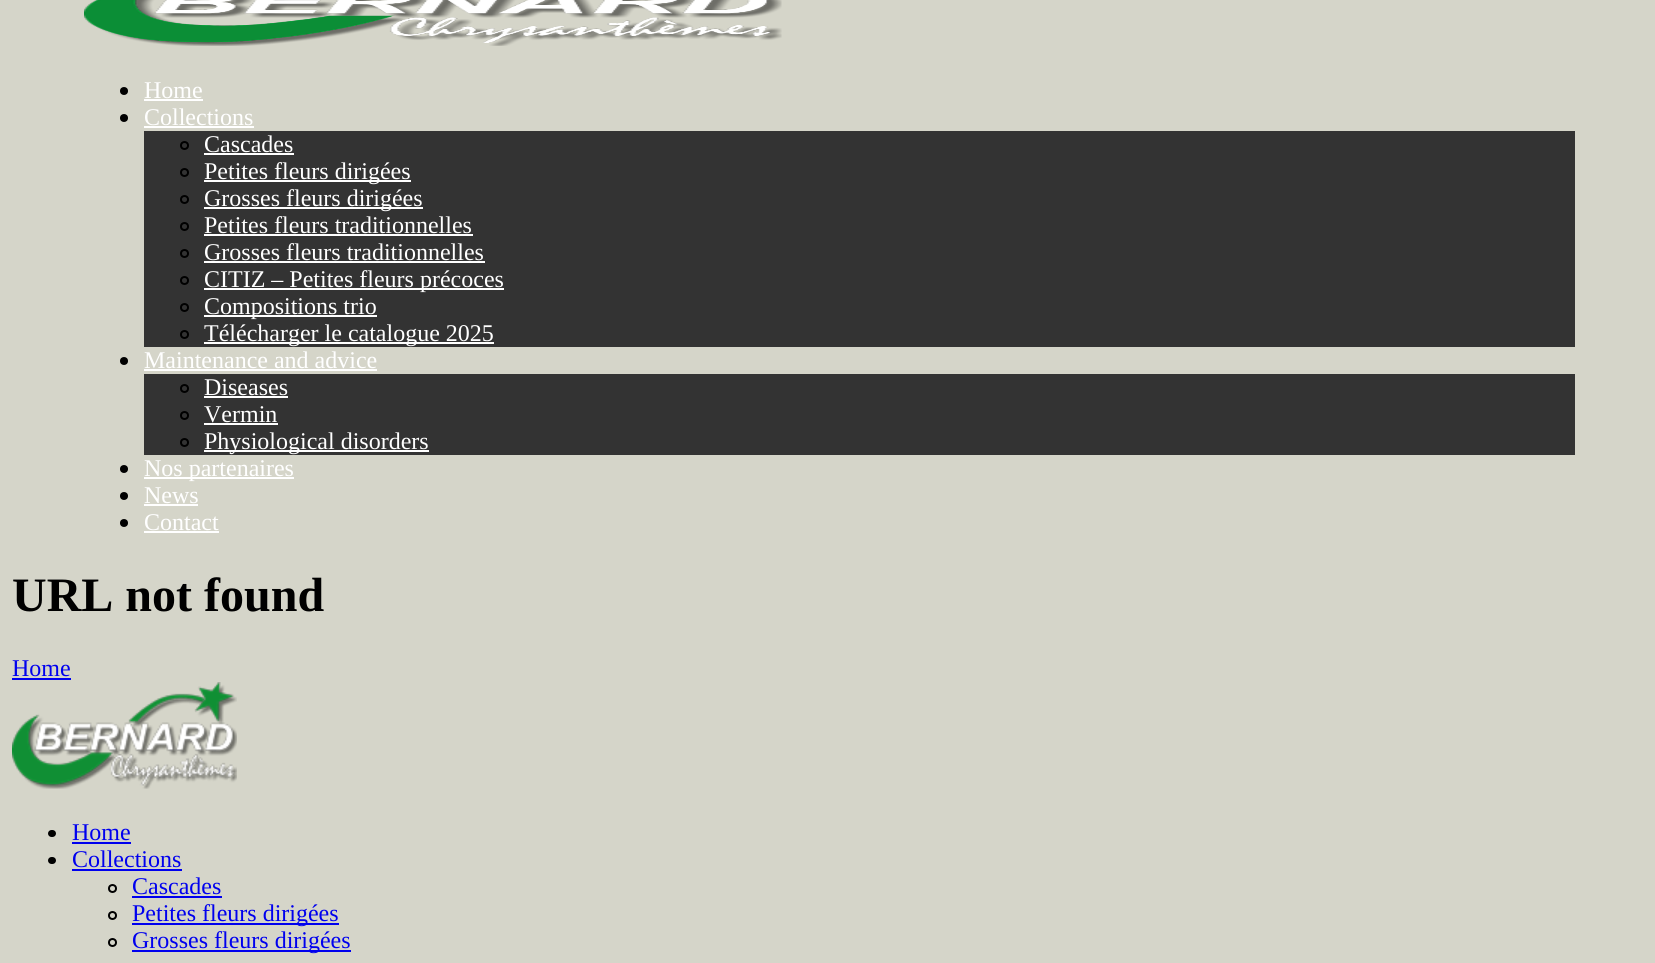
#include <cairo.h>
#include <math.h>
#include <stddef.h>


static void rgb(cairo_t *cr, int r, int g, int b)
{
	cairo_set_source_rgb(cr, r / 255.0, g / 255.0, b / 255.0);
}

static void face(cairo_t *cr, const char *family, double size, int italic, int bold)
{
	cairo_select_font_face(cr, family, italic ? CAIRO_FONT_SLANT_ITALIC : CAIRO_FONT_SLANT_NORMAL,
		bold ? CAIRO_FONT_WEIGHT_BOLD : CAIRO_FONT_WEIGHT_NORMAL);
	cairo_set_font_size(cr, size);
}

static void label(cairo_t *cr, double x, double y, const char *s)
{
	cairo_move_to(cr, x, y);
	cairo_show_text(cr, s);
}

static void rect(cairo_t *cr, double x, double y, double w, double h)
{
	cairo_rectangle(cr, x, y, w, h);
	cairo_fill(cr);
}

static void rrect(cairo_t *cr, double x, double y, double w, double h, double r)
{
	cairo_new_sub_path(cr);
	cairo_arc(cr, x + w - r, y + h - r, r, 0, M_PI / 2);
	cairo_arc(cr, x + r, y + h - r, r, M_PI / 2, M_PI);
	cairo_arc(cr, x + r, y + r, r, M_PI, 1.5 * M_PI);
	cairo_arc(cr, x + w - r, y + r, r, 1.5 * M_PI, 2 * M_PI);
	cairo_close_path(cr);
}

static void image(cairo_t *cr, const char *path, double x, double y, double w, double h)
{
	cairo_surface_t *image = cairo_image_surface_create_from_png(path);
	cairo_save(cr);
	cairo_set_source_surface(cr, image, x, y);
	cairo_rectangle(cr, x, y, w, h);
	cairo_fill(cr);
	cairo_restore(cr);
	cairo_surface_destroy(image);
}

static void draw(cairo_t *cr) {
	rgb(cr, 213, 213, 201);
	cairo_paint(cr);
	image(cr, "image0.png", 84, 0, 698, 46);
	rgb(cr, 0, 0, 0);
	cairo_arc(cr, 124, 91, 4, 0, 2 * M_PI);
	cairo_fill(cr);
	face(cr, "Liberation Serif", 24, 0, 0);
	rgb(cr, 255, 255, 255);
	label(cr, 144, 98, "Home");
	rect(cr, 144, 99, 59, 2);
	rgb(cr, 0, 0, 0);
	cairo_new_path(cr);
	cairo_arc(cr, 124, 118, 4, 0, 2 * M_PI);
	cairo_fill(cr);
	rgb(cr, 255, 255, 255);
	label(cr, 144, 125, "Collections");
	rect(cr, 144, 126, 110, 2);
	rgb(cr, 51, 51, 51);
	rect(cr, 144, 131, 1431, 216);
	cairo_new_path(cr);
	cairo_arc(cr, 184.5, 145.5, 3.5, 0, 2 * M_PI);
	rgb(cr, 0, 0, 0);
	cairo_stroke(cr);
	rgb(cr, 255, 255, 255);
	label(cr, 204, 152, "Cascades");
	rect(cr, 204, 153, 90, 2);
	cairo_new_path(cr);
	cairo_arc(cr, 184.5, 172.5, 3.5, 0, 2 * M_PI);
	rgb(cr, 0, 0, 0);
	cairo_stroke(cr);
	rgb(cr, 255, 255, 255);
	rect(cr, 204, 180, 207, 2);
	label(cr, 204, 179, "Petites fleurs dirigées");
	cairo_new_path(cr);
	cairo_arc(cr, 184.5, 199.5, 3.5, 0, 2 * M_PI);
	rgb(cr, 0, 0, 0);
	cairo_stroke(cr);
	rgb(cr, 255, 255, 255);
	rect(cr, 204, 207, 219, 2);
	label(cr, 204, 206, "Grosses fleurs dirigées");
	cairo_new_path(cr);
	cairo_arc(cr, 184.5, 226.5, 3.5, 0, 2 * M_PI);
	rgb(cr, 0, 0, 0);
	cairo_stroke(cr);
	rgb(cr, 255, 255, 255);
	label(cr, 204, 233, "Petites fleurs traditionnelles");
	rect(cr, 204, 234, 269, 2);
	cairo_new_path(cr);
	cairo_arc(cr, 184.5, 253.5, 3.5, 0, 2 * M_PI);
	rgb(cr, 0, 0, 0);
	cairo_stroke(cr);
	rgb(cr, 255, 255, 255);
	label(cr, 204, 260, "Grosses fleurs traditionnelles");
	rect(cr, 204, 261, 281, 2);
	cairo_new_path(cr);
	cairo_arc(cr, 184.5, 280.5, 3.5, 0, 2 * M_PI);
	rgb(cr, 0, 0, 0);
	cairo_stroke(cr);
	rgb(cr, 255, 255, 255);
	rect(cr, 204, 288, 300, 2);
	label(cr, 204, 287, "CITIZ – Petites fleurs précoces");
	cairo_new_path(cr);
	cairo_arc(cr, 184.5, 307.5, 3.5, 0, 2 * M_PI);
	rgb(cr, 0, 0, 0);
	cairo_stroke(cr);
	rgb(cr, 255, 255, 255);
	rect(cr, 204, 315, 173, 2);
	label(cr, 204, 314, "Compositions trio");
	cairo_new_path(cr);
	cairo_arc(cr, 184.5, 334.5, 3.5, 0, 2 * M_PI);
	rgb(cr, 0, 0, 0);
	cairo_stroke(cr);
	rgb(cr, 255, 255, 255);
	rect(cr, 204, 342, 290, 2);
	label(cr, 204, 341, "Télécharger le catalogue 2025");
	rgb(cr, 0, 0, 0);
	cairo_new_path(cr);
	cairo_arc(cr, 124, 361, 4, 0, 2 * M_PI);
	cairo_fill(cr);
	rgb(cr, 255, 255, 255);
	label(cr, 144, 368, "Maintenance and advice");
	rect(cr, 144, 369, 233, 2);
	rgb(cr, 51, 51, 51);
	rect(cr, 144, 374, 1431, 81);
	cairo_new_path(cr);
	cairo_arc(cr, 184.5, 388.5, 3.5, 0, 2 * M_PI);
	rgb(cr, 0, 0, 0);
	cairo_stroke(cr);
	rgb(cr, 255, 255, 255);
	label(cr, 204, 395, "Diseases");
	rect(cr, 204, 396, 84, 2);
	cairo_new_path(cr);
	cairo_arc(cr, 184.5, 415.5, 3.5, 0, 2 * M_PI);
	rgb(cr, 0, 0, 0);
	cairo_stroke(cr);
	rgb(cr, 255, 255, 255);
	label(cr, 204, 422, "Vermin");
	rect(cr, 204, 423, 74, 2);
	cairo_new_path(cr);
	cairo_arc(cr, 184.5, 442.5, 3.5, 0, 2 * M_PI);
	rgb(cr, 0, 0, 0);
	cairo_stroke(cr);
	rgb(cr, 255, 255, 255);
	rect(cr, 204, 450, 225, 2);
	label(cr, 204, 449, "Physiological disorders");
	rgb(cr, 0, 0, 0);
	cairo_new_path(cr);
	cairo_arc(cr, 124, 469, 4, 0, 2 * M_PI);
	cairo_fill(cr);
	rgb(cr, 255, 255, 255);
	rect(cr, 144, 477, 150, 2);
	label(cr, 144, 476, "Nos partenaires");
	rgb(cr, 0, 0, 0);
	cairo_new_path(cr);
	cairo_arc(cr, 124, 496, 4, 0, 2 * M_PI);
	cairo_fill(cr);
	rgb(cr, 255, 255, 255);
	label(cr, 144, 503, "News");
	rect(cr, 144, 504, 54, 2);
	rgb(cr, 0, 0, 0);
	cairo_new_path(cr);
	cairo_arc(cr, 124, 523, 4, 0, 2 * M_PI);
	cairo_fill(cr);
	rgb(cr, 255, 255, 255);
	label(cr, 144, 530, "Contact");
	rect(cr, 144, 531, 75, 2);
	face(cr, "Liberation Serif", 48, 0, 1);
	rgb(cr, 0, 0, 0);
	label(cr, 12, 611, "URL not found");
	face(cr, "Liberation Serif", 24, 0, 0);
	rgb(cr, 0, 0, 238);
	label(cr, 12, 676, "Home");
	rect(cr, 12, 678, 59, 2);
	image(cr, "image1.png", 12, 682, 225, 107);
	rgb(cr, 0, 0, 0);
	rrect(cr, 48, 830, 8, 7, 3.5);
	cairo_fill(cr);
	rgb(cr, 0, 0, 238);
	label(cr, 72, 840, "Home");
	rect(cr, 72, 842, 59, 2);
	rgb(cr, 0, 0, 0);
	rrect(cr, 48, 857, 8, 7, 3.5);
	cairo_fill(cr);
	rgb(cr, 0, 0, 238);
	label(cr, 72, 867, "Collections");
	rect(cr, 72, 869, 110, 2);
	cairo_new_path(cr);
	cairo_arc(cr, 112.5, 888.5, 3.5, 0, 2 * M_PI);
	rgb(cr, 0, 0, 0);
	cairo_stroke(cr);
	rgb(cr, 0, 0, 238);
	label(cr, 132, 894, "Cascades");
	rect(cr, 132, 896, 90, 2);
	cairo_new_path(cr);
	cairo_arc(cr, 112.5, 915.5, 3.5, 0, 2 * M_PI);
	rgb(cr, 0, 0, 0);
	cairo_stroke(cr);
	rgb(cr, 0, 0, 238);
	rect(cr, 132, 923, 207, 2);
	label(cr, 132, 921, "Petites fleurs dirigées");
	cairo_new_path(cr);
	cairo_arc(cr, 112.5, 942.5, 3.5, 0, 2 * M_PI);
	rgb(cr, 0, 0, 0);
	cairo_stroke(cr);
	rgb(cr, 0, 0, 238);
	rect(cr, 132, 950, 219, 2);
	label(cr, 132, 948, "Grosses fleurs dirigées");
}

int main(void) {
	cairo_surface_t *surface = cairo_image_surface_create(CAIRO_FORMAT_RGB24, 1655, 963);
	cairo_t *cr = cairo_create(surface);
	cairo_font_options_t *options = cairo_font_options_create();
	cairo_font_options_set_hint_metrics(options, CAIRO_HINT_METRICS_OFF);
	cairo_font_options_set_hint_style(options, CAIRO_HINT_STYLE_NONE);
	cairo_set_font_options(cr, options);
	cairo_set_miter_limit(cr, 4);
	draw(cr);
	cairo_surface_write_to_png(surface, "render.png");
	cairo_font_options_destroy(options);
	cairo_destroy(cr);
	cairo_surface_destroy(surface);
	return 0;
}
